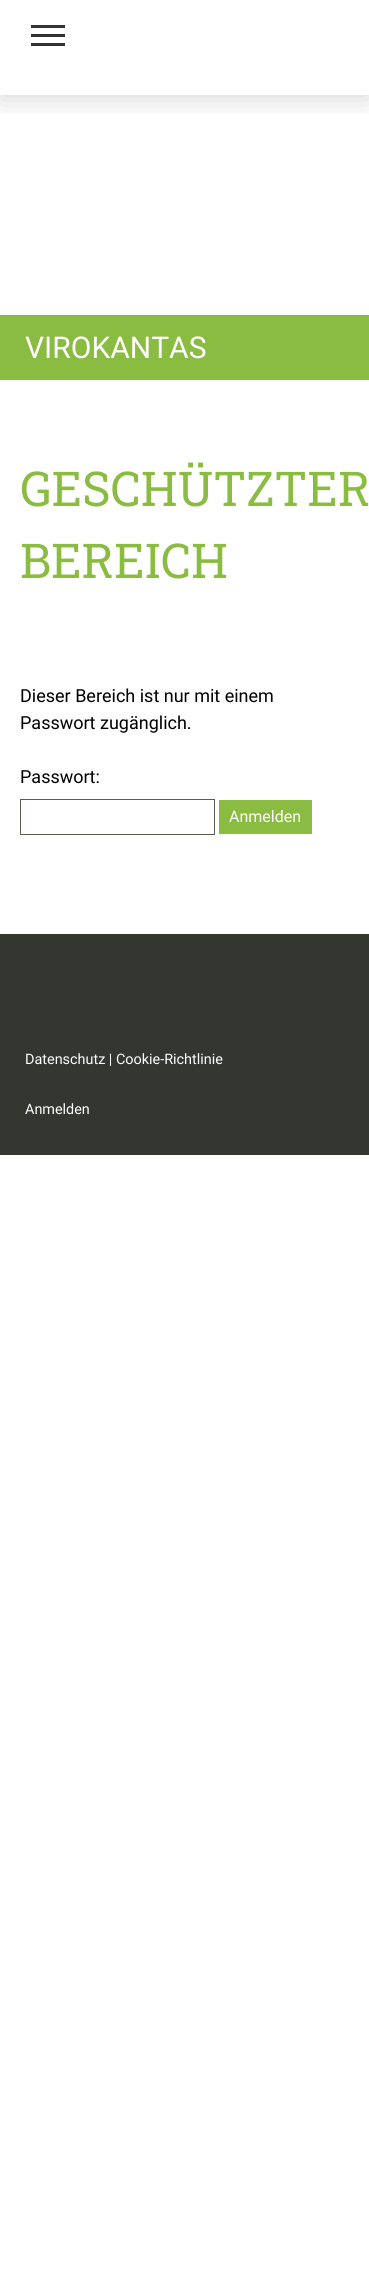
#include <cairo.h>
#include <math.h>
#include <stddef.h>


static void rgb(cairo_t *cr, int r, int g, int b)
{
	cairo_set_source_rgb(cr, r / 255.0, g / 255.0, b / 255.0);
}

static void face(cairo_t *cr, const char *family, double size, int italic, int bold)
{
	cairo_select_font_face(cr, family, italic ? CAIRO_FONT_SLANT_ITALIC : CAIRO_FONT_SLANT_NORMAL,
		bold ? CAIRO_FONT_WEIGHT_BOLD : CAIRO_FONT_WEIGHT_NORMAL);
	cairo_set_font_size(cr, size);
}

static void label(cairo_t *cr, double x, double y, const char *s)
{
	cairo_move_to(cr, x, y);
	cairo_show_text(cr, s);
}

static void rect(cairo_t *cr, double x, double y, double w, double h)
{
	cairo_rectangle(cr, x, y, w, h);
	cairo_fill(cr);
}

static void rrect(cairo_t *cr, double x, double y, double w, double h, double r)
{
	cairo_new_sub_path(cr);
	cairo_arc(cr, x + w - r, y + h - r, r, 0, M_PI / 2);
	cairo_arc(cr, x + r, y + h - r, r, M_PI / 2, M_PI);
	cairo_arc(cr, x + r, y + r, r, M_PI, 1.5 * M_PI);
	cairo_arc(cr, x + w - r, y + r, r, 1.5 * M_PI, 2 * M_PI);
	cairo_close_path(cr);
}

static void soft_shadow(cairo_t *cr, double x, double y, double w, double h, double r, double blur, double alpha)
{
	cairo_push_group_with_content(cr, CAIRO_CONTENT_ALPHA);
	cairo_set_operator(cr, CAIRO_OPERATOR_SOURCE);
	for (int i = 15; i >= -15 && fmin(w, h) + blur * i / 3 > 0; i -= 2) {
		double e = blur * i / 6;
		cairo_set_source_rgba(cr, 0, 0, 0, alpha * erfc((i - 1) / 8.5) / 2);
		rrect(cr, x - e, y - e, w + 2 * e, h + 2 * e, fmax(0, fmin(r + e + blur * .6, fmin(w, h) / 2 + e)));
		cairo_fill(cr);
	}
	cairo_pattern_t *soft = cairo_pop_group(cr);
	cairo_mask(cr, soft);
	cairo_pattern_destroy(soft);
}

static void draw(cairo_t *cr) {
	rgb(cr, 255, 255, 255);
	cairo_paint(cr);
	cairo_save(cr);
	cairo_rectangle(cr, 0, 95, 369, 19);
	cairo_clip(cr);
	rgb(cr, 0, 0, 0);
	soft_shadow(cr, 0, 75, 369, 20, 0, 15, 0.2);
	cairo_restore(cr);
	rgb(cr, 255, 255, 255);
	rect(cr, 0, 51, 369, 24);
	rgb(cr, 51, 51, 51);
	rect(cr, 31, 34, 34, 3);
	rect(cr, 31, 25, 34, 3);
	rect(cr, 31, 43, 34, 3);
	rgb(cr, 139, 188, 66);
	rect(cr, 0, 315, 369, 65);
	face(cr, "Roboto", 30, 0, 0);
	rgb(cr, 255, 255, 255);
	label(cr, 25, 358, "VIROKANTAS");
	face(cr, "Roboto Slab", 48, 0, 0);
	rgb(cr, 139, 188, 66);
	label(cr, 20, 506, "GESCHÜTZTER");
	label(cr, 20, 578, "BEREICH");
	face(cr, "Roboto", 18, 0, 0);
	rgb(cr, 0, 0, 0);
	label(cr, 20, 702, "Dieser Bereich ist nur mit einem");
	label(cr, 20, 729, "Passwort zugänglich.");
	label(cr, 20, 783, "Passwort:");
	cairo_rectangle(cr, 20.5, 799.5, 194, 35);
	rgb(cr, 88, 93, 80);
	cairo_set_line_width(cr, 1);
	cairo_stroke(cr);
	rgb(cr, 139, 188, 66);
	rect(cr, 219, 800, 93, 34);
	face(cr, "Roboto", 16, 0, 0);
	rgb(cr, 255, 255, 255);
	label(cr, 229, 822, "Anmelden");
	rgb(cr, 52, 54, 48);
	rect(cr, 0, 934, 369, 221);
	face(cr, "Roboto", 14.4, 0, 0);
	rgb(cr, 255, 255, 255);
	label(cr, 25, 1064, "Datenschutz | Cookie-Richtlinie");
	label(cr, 25, 1114, "Anmelden");
}

int main(void) {
	cairo_surface_t *surface = cairo_image_surface_create(CAIRO_FORMAT_RGB24, 369, 2292);
	cairo_t *cr = cairo_create(surface);
	cairo_font_options_t *options = cairo_font_options_create();
	cairo_font_options_set_hint_metrics(options, CAIRO_HINT_METRICS_OFF);
	cairo_font_options_set_hint_style(options, CAIRO_HINT_STYLE_NONE);
	cairo_set_font_options(cr, options);
	cairo_set_miter_limit(cr, 4);
	draw(cr);
	cairo_surface_write_to_png(surface, "render.png");
	cairo_font_options_destroy(options);
	cairo_destroy(cr);
	cairo_surface_destroy(surface);
	return 0;
}
